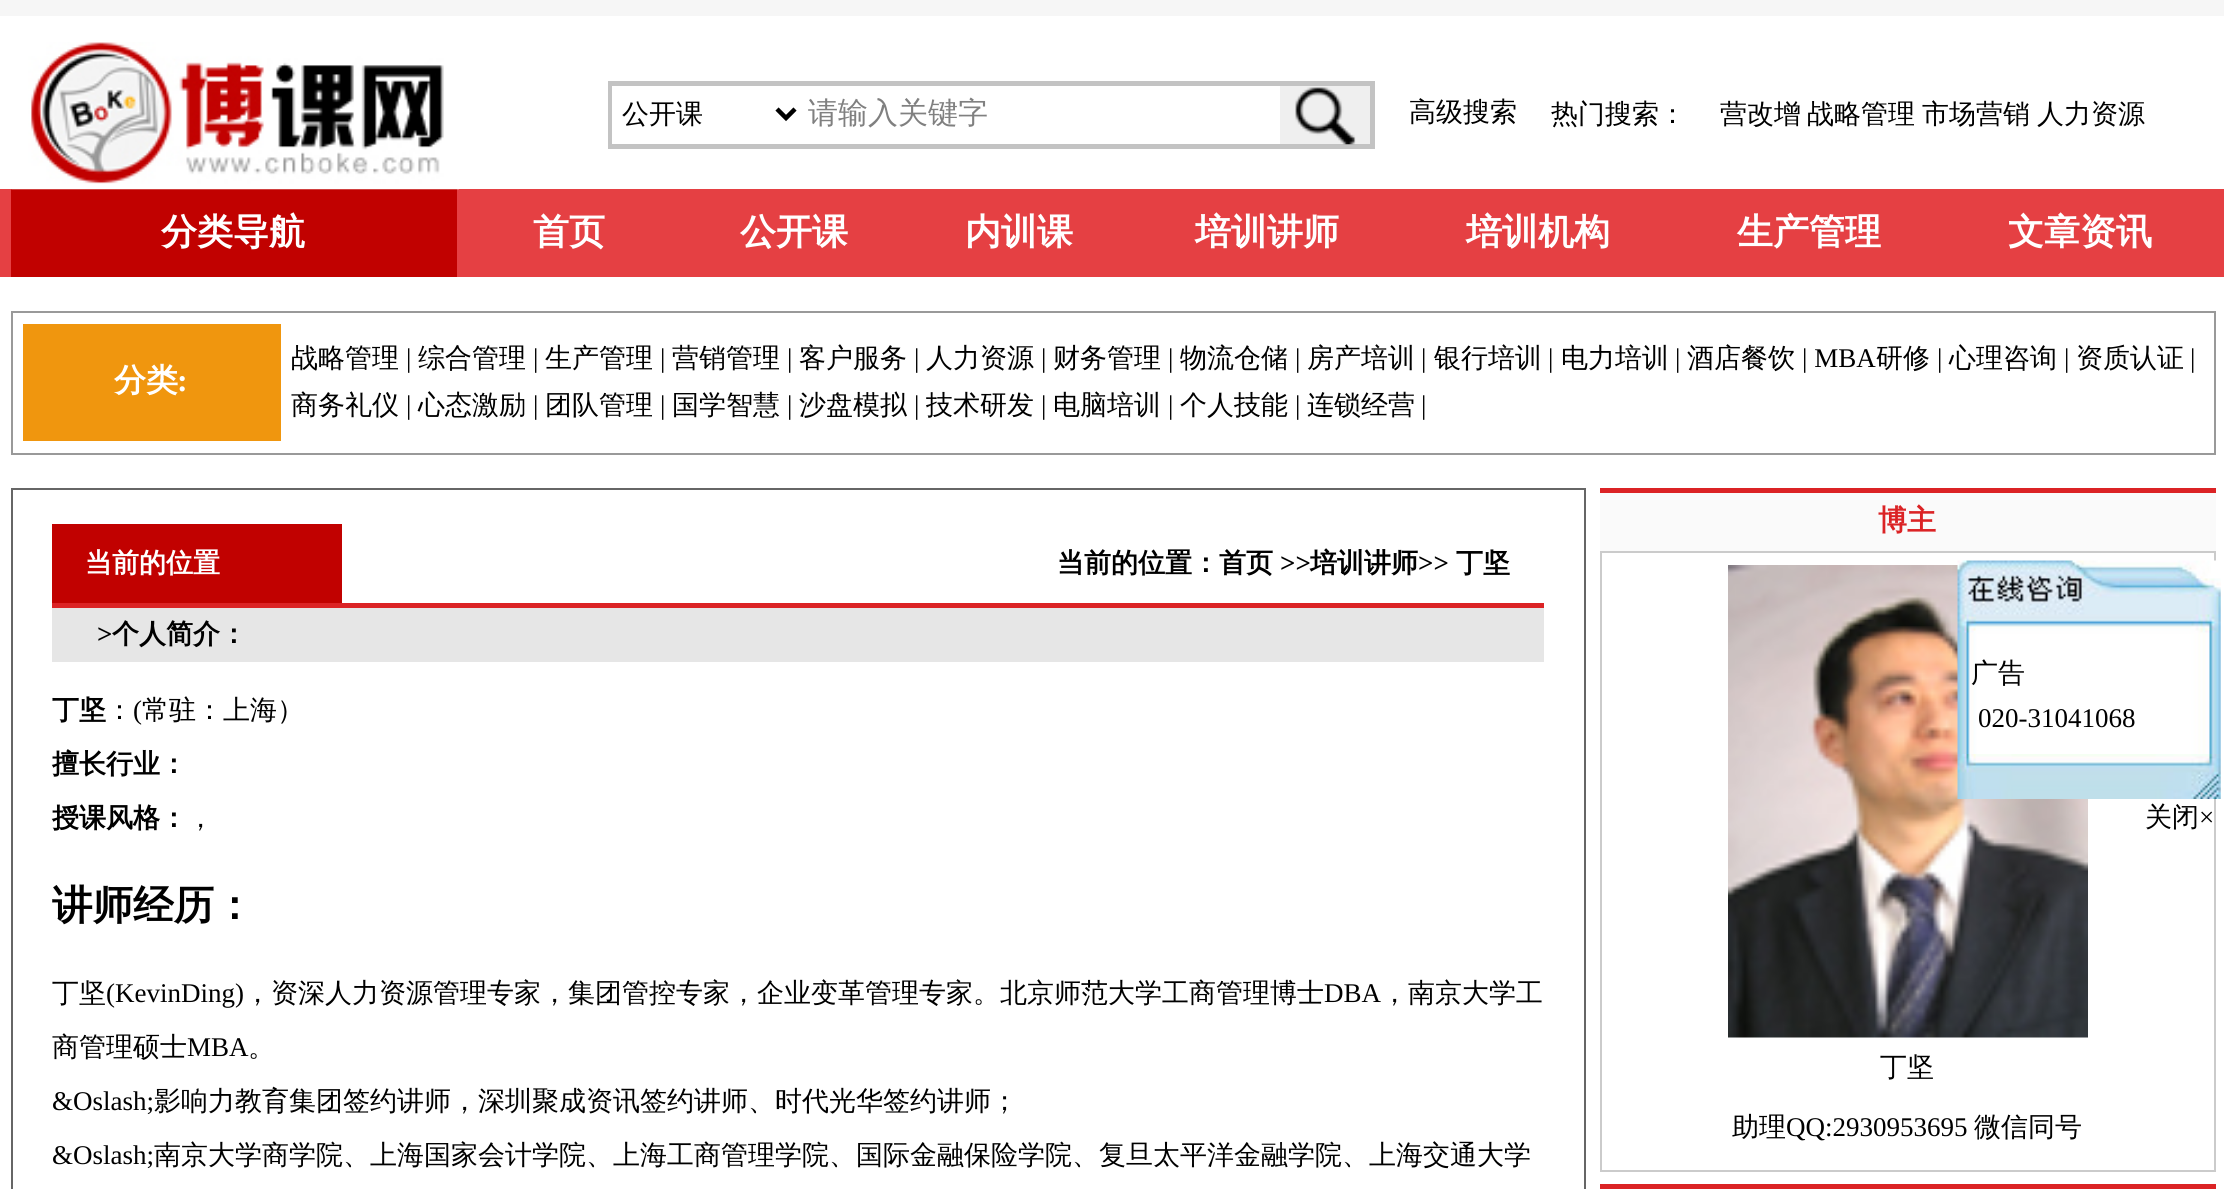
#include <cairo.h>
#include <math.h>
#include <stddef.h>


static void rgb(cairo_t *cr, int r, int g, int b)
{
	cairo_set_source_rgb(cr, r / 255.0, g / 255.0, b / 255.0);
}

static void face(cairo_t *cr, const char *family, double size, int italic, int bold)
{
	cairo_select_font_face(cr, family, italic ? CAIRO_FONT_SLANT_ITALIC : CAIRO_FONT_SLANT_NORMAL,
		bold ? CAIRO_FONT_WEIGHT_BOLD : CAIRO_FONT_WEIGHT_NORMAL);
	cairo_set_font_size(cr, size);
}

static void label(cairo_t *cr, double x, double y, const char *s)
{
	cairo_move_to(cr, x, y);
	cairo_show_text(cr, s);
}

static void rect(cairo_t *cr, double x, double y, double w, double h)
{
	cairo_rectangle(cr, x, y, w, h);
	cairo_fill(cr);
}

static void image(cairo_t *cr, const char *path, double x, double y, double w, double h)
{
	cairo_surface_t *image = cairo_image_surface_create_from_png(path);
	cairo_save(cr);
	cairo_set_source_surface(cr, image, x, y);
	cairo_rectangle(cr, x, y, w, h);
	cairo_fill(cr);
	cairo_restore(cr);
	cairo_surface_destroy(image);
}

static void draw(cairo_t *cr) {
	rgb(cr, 255, 255, 255);
	cairo_paint(cr);
	rgb(cr, 246, 246, 246);
	rect(cr, 0, 0, 2224, 16);
	rgb(cr, 229, 64, 67);
	rect(cr, 0, 189, 2224, 88);
	rgb(cr, 193, 1, 0);
	rect(cr, 11, 189, 446, 88);
	image(cr, "image0.png", 11, 42, 448, 148);
	cairo_rectangle(cr, 610.5, 83.5, 762, 63);
	rgb(cr, 195, 195, 195);
	cairo_set_line_width(cr, 5);
	cairo_stroke(cr);
	rgb(cr, 255, 255, 255);
	rect(cr, 612, 86, 1, 58);
	cairo_new_path(cr);
	cairo_move_to(cr, 777, 109);
	cairo_line_to(cr, 786, 118);
	cairo_line_to(cr, 795, 109);
	rgb(cr, 0, 0, 0);
	cairo_set_line_width(cr, 4.5);
	cairo_stroke(cr);
	face(cr, "WenQuanYi Zen Hei Medium", 27, 0, 0);
	label(cr, 622, 123, "公开课");
	face(cr, "WenQuanYi Zen Hei Medium", 30, 0, 0);
	rgb(cr, 128, 128, 128);
	label(cr, 808, 123, "请输入关键字");
	rgb(cr, 239, 239, 239);
	rect(cr, 1280, 86, 90, 58);
	image(cr, "image1.png", 1295, 87, 61, 58);
	face(cr, "WenQuanYi Zen Hei Medium", 27, 0, 0);
	rgb(cr, 0, 0, 0);
	label(cr, 1409, 121, "高级搜索");
	label(cr, 1551, 123, "热门搜索：");
	label(cr, 1720, 123, "营改增");
	label(cr, 1807, 123, "战略管理");
	label(cr, 1922, 123, "市场营销");
	label(cr, 2037, 123, "人力资源");
	face(cr, "WenQuanYi Zen Hei", 36, 0, 1);
	rgb(cr, 255, 255, 255);
	label(cr, 161, 244, "分类导航");
	label(cr, 533, 244, "首页");
	label(cr, 740, 244, "公开课");
	label(cr, 965, 244, "内训课");
	label(cr, 1195, 244, "培训讲师");
	label(cr, 1466, 244, "培训机构");
	label(cr, 1737, 244, "生产管理");
	label(cr, 2008, 244, "文章资讯");
	cairo_rectangle(cr, 12, 312, 2203, 142);
	rgb(cr, 153, 153, 153);
	cairo_set_line_width(cr, 2);
	cairo_stroke(cr);
	rgb(cr, 240, 150, 14);
	rect(cr, 23, 324, 258, 117);
	face(cr, "WenQuanYi Zen Hei", 32, 0, 1);
	rgb(cr, 255, 255, 255);
	label(cr, 114, 391, "分类");
	face(cr, "Liberation Serif", 32, 0, 1);
	label(cr, 177, 391, ":");
	face(cr, "WenQuanYi Zen Hei Medium", 27, 0, 0);
	rgb(cr, 0, 0, 0);
	label(cr, 291, 367, "战略管理");
	face(cr, "Liberation Serif", 27, 0, 0);
	label(cr, 406, 367, "|");
	face(cr, "WenQuanYi Zen Hei Medium", 27, 0, 0);
	label(cr, 418, 367, "综合管理");
	face(cr, "Liberation Serif", 27, 0, 0);
	label(cr, 533, 367, "|");
	face(cr, "WenQuanYi Zen Hei Medium", 27, 0, 0);
	label(cr, 545, 367, "生产管理");
	face(cr, "Liberation Serif", 27, 0, 0);
	label(cr, 660, 367, "|");
	face(cr, "WenQuanYi Zen Hei Medium", 27, 0, 0);
	label(cr, 672, 367, "营销管理");
	face(cr, "Liberation Serif", 27, 0, 0);
	label(cr, 787, 367, "|");
	face(cr, "WenQuanYi Zen Hei Medium", 27, 0, 0);
	label(cr, 799, 367, "客户服务");
	face(cr, "Liberation Serif", 27, 0, 0);
	label(cr, 914, 367, "|");
	face(cr, "WenQuanYi Zen Hei Medium", 27, 0, 0);
	label(cr, 926, 367, "人力资源");
	face(cr, "Liberation Serif", 27, 0, 0);
	label(cr, 1041, 367, "|");
	face(cr, "WenQuanYi Zen Hei Medium", 27, 0, 0);
	label(cr, 1053, 367, "财务管理");
	face(cr, "Liberation Serif", 27, 0, 0);
	label(cr, 1168, 367, "|");
	face(cr, "WenQuanYi Zen Hei Medium", 27, 0, 0);
	label(cr, 1180, 367, "物流仓储");
	face(cr, "Liberation Serif", 27, 0, 0);
	label(cr, 1295, 367, "|");
	face(cr, "WenQuanYi Zen Hei Medium", 27, 0, 0);
	label(cr, 1307, 367, "房产培训");
	face(cr, "Liberation Serif", 27, 0, 0);
	label(cr, 1421, 367, "|");
	face(cr, "WenQuanYi Zen Hei Medium", 27, 0, 0);
	label(cr, 1434, 367, "银行培训");
	face(cr, "Liberation Serif", 27, 0, 0);
	label(cr, 1548, 367, "|");
	face(cr, "WenQuanYi Zen Hei Medium", 27, 0, 0);
	label(cr, 1561, 367, "电力培训");
	face(cr, "Liberation Serif", 27, 0, 0);
	label(cr, 1675, 367, "|");
	face(cr, "WenQuanYi Zen Hei Medium", 27, 0, 0);
	label(cr, 1687, 367, "酒店餐饮");
	face(cr, "Liberation Serif", 27, 0, 0);
	label(cr, 1802, 367, "| MBA");
	face(cr, "WenQuanYi Zen Hei Medium", 27, 0, 0);
	label(cr, 1876, 367, "研修");
	face(cr, "Liberation Serif", 27, 0, 0);
	label(cr, 1937, 367, "|");
	face(cr, "WenQuanYi Zen Hei Medium", 27, 0, 0);
	label(cr, 1949, 367, "心理咨询");
	face(cr, "Liberation Serif", 27, 0, 0);
	label(cr, 2064, 367, "|");
	face(cr, "WenQuanYi Zen Hei Medium", 27, 0, 0);
	label(cr, 2076, 367, "资质认证");
	face(cr, "Liberation Serif", 27, 0, 0);
	label(cr, 2190, 367, "|");
	face(cr, "WenQuanYi Zen Hei Medium", 27, 0, 0);
	label(cr, 291, 414, "商务礼仪");
	face(cr, "Liberation Serif", 27, 0, 0);
	label(cr, 406, 414, "|");
	face(cr, "WenQuanYi Zen Hei Medium", 27, 0, 0);
	label(cr, 418, 414, "心态激励");
	face(cr, "Liberation Serif", 27, 0, 0);
	label(cr, 533, 414, "|");
	face(cr, "WenQuanYi Zen Hei Medium", 27, 0, 0);
	label(cr, 545, 414, "团队管理");
	face(cr, "Liberation Serif", 27, 0, 0);
	label(cr, 660, 414, "|");
	face(cr, "WenQuanYi Zen Hei Medium", 27, 0, 0);
	label(cr, 672, 414, "国学智慧");
	face(cr, "Liberation Serif", 27, 0, 0);
	label(cr, 787, 414, "|");
	face(cr, "WenQuanYi Zen Hei Medium", 27, 0, 0);
	label(cr, 799, 414, "沙盘模拟");
	face(cr, "Liberation Serif", 27, 0, 0);
	label(cr, 914, 414, "|");
	face(cr, "WenQuanYi Zen Hei Medium", 27, 0, 0);
	label(cr, 926, 414, "技术研发");
	face(cr, "Liberation Serif", 27, 0, 0);
	label(cr, 1041, 414, "|");
	face(cr, "WenQuanYi Zen Hei Medium", 27, 0, 0);
	label(cr, 1053, 414, "电脑培训");
	face(cr, "Liberation Serif", 27, 0, 0);
	label(cr, 1168, 414, "|");
	face(cr, "WenQuanYi Zen Hei Medium", 27, 0, 0);
	label(cr, 1180, 414, "个人技能");
	face(cr, "Liberation Serif", 27, 0, 0);
	label(cr, 1295, 414, "|");
	face(cr, "WenQuanYi Zen Hei Medium", 27, 0, 0);
	label(cr, 1307, 414, "连锁经营");
	face(cr, "Liberation Serif", 27, 0, 0);
	label(cr, 1421, 414, "|");
	cairo_rectangle(cr, 12, 489, 1573, 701);
	rgb(cr, 102, 102, 102);
	cairo_stroke(cr);
	rgb(cr, 219, 35, 37);
	rect(cr, 52, 603, 1492, 5);
	rgb(cr, 193, 1, 0);
	rect(cr, 52, 524, 290, 79);
	face(cr, "WenQuanYi Zen Hei", 27, 0, 1);
	rgb(cr, 255, 255, 255);
	label(cr, 85, 572, "当前的位置");
	rgb(cr, 0, 0, 0);
	label(cr, 1057, 572, "当前的位置：首页");
	face(cr, "Liberation Serif", 27, 0, 1);
	label(cr, 1280, 572, ">>");
	face(cr, "WenQuanYi Zen Hei", 27, 0, 1);
	label(cr, 1310, 572, "培训讲师");
	face(cr, "Liberation Serif", 27, 0, 1);
	label(cr, 1418, 572, ">>");
	face(cr, "WenQuanYi Zen Hei", 27, 0, 1);
	label(cr, 1456, 572, "丁坚");
	rgb(cr, 230, 230, 230);
	rect(cr, 52, 608, 1492, 54);
	face(cr, "Liberation Serif", 27, 0, 1);
	rgb(cr, 0, 0, 0);
	label(cr, 97, 643, ">");
	face(cr, "WenQuanYi Zen Hei", 27, 0, 1);
	label(cr, 112, 643, "个人简介：");
	label(cr, 52, 719, "丁坚");
	face(cr, "WenQuanYi Zen Hei Medium", 27, 0, 0);
	label(cr, 106, 719, "：");
	face(cr, "Liberation Serif", 27, 0, 0);
	label(cr, 133, 719, "(");
	face(cr, "WenQuanYi Zen Hei Medium", 27, 0, 0);
	label(cr, 142, 719, "常驻：上海）");
	face(cr, "WenQuanYi Zen Hei", 27, 0, 1);
	label(cr, 52, 773, "擅长行业：");
	label(cr, 52, 827, "授课风格：");
	face(cr, "WenQuanYi Zen Hei Medium", 27, 0, 0);
	label(cr, 187, 827, "，");
	face(cr, "WenQuanYi Zen Hei", 40.5, 0, 1);
	label(cr, 52, 919, "讲师经历：");
	face(cr, "WenQuanYi Zen Hei Medium", 27, 0, 0);
	label(cr, 52, 1002, "丁坚");
	face(cr, "Liberation Serif", 27, 0, 0);
	label(cr, 106, 1002, "(KevinDing)");
	face(cr, "WenQuanYi Zen Hei Medium", 27, 0, 0);
	label(cr, 244, 1002, "，资深人力资源管理专家，集团管控专家，企业变革管理专家。北京师范大学工商管理博士");
	face(cr, "Liberation Serif", 27, 0, 0);
	label(cr, 1324, 1002, "DBA");
	face(cr, "WenQuanYi Zen Hei Medium", 27, 0, 0);
	label(cr, 1381, 1002, "，南京大学工");
	label(cr, 52, 1056, "商管理硕士");
	face(cr, "Liberation Serif", 27, 0, 0);
	label(cr, 187, 1056, "MBA");
	face(cr, "WenQuanYi Zen Hei Medium", 27, 0, 0);
	label(cr, 248, 1056, "。");
	face(cr, "Liberation Serif", 27, 0, 0);
	label(cr, 52, 1110, "&Oslash;");
	face(cr, "WenQuanYi Zen Hei Medium", 27, 0, 0);
	label(cr, 154, 1110, "影响力教育集团签约讲师，深圳聚成资讯签约讲师、时代光华签约讲师；");
	face(cr, "Liberation Serif", 27, 0, 0);
	label(cr, 52, 1164, "&Oslash;");
	face(cr, "WenQuanYi Zen Hei Medium", 27, 0, 0);
	label(cr, 154, 1164, "南京大学商学院、上海国家会计学院、上海工商管理学院、国际金融保险学院、复旦太平洋金融学院、上海交通大学");
	rgb(cr, 250, 250, 250);
	rect(cr, 1600, 493, 616, 58);
	rgb(cr, 219, 35, 37);
	rect(cr, 1600, 488, 616, 5);
	face(cr, "WenQuanYi Zen Hei", 29, 0, 1);
	label(cr, 1878, 530, "博主");
	cairo_rectangle(cr, 1601, 552, 614, 619);
	rgb(cr, 203, 203, 203);
	cairo_stroke(cr);
	image(cr, "image2.png", 1728, 565, 360, 473);
	face(cr, "WenQuanYi Zen Hei Medium", 27, 0, 0);
	rgb(cr, 0, 0, 0);
	label(cr, 1880, 1076, "丁坚");
	label(cr, 1732, 1136, "助理");
	face(cr, "Liberation Serif", 27, 0, 0);
	label(cr, 1786, 1136, "QQ:2930953695");
	face(cr, "WenQuanYi Zen Hei Medium", 27, 0, 0);
	label(cr, 1974, 1136, "微信同号");
	rgb(cr, 219, 35, 37);
	rect(cr, 1600, 1184, 616, 5);
	image(cr, "image3.png", 1957, 560, 264, 77);
	image(cr, "image4.png", 1957, 637, 264, 117);
	rgb(cr, 0, 0, 0);
	label(cr, 1971, 682, "广告");
	face(cr, "Liberation Serif", 27, 0, 0);
	label(cr, 1978, 727, "020-31041068");
	image(cr, "image5.png", 1957, 754, 264, 45);
	face(cr, "WenQuanYi Zen Hei Medium", 27, 0, 0);
	label(cr, 2145, 826, "关闭");
	face(cr, "Liberation Serif", 27, 0, 0);
	label(cr, 2199, 826, "×");
}

int main(void) {
	cairo_surface_t *surface = cairo_image_surface_create(CAIRO_FORMAT_RGB24, 2224, 1189);
	cairo_t *cr = cairo_create(surface);
	cairo_font_options_t *options = cairo_font_options_create();
	cairo_font_options_set_hint_metrics(options, CAIRO_HINT_METRICS_OFF);
	cairo_font_options_set_hint_style(options, CAIRO_HINT_STYLE_NONE);
	cairo_set_font_options(cr, options);
	cairo_set_miter_limit(cr, 4);
	draw(cr);
	cairo_surface_write_to_png(surface, "render.png");
	cairo_font_options_destroy(options);
	cairo_destroy(cr);
	cairo_surface_destroy(surface);
	return 0;
}
